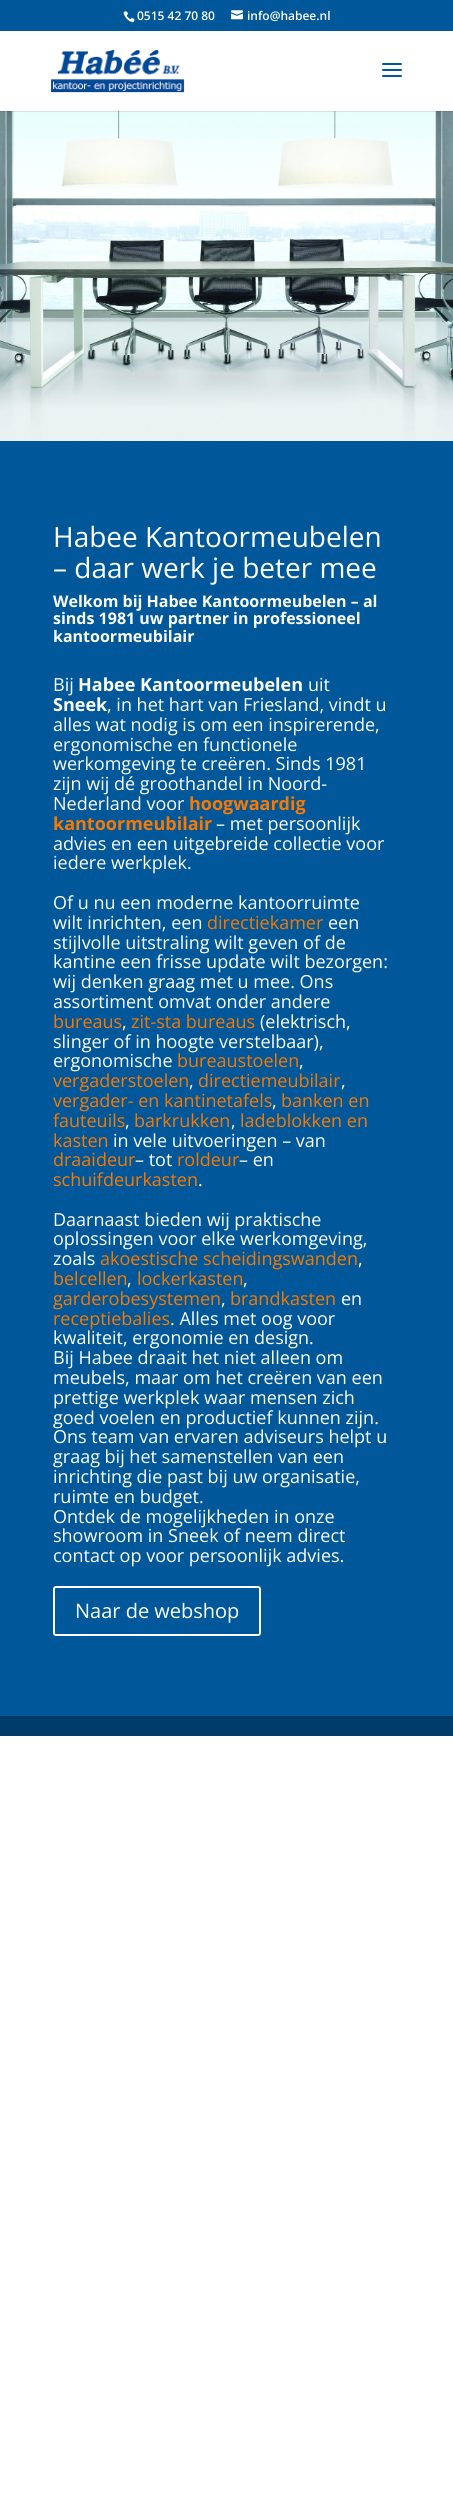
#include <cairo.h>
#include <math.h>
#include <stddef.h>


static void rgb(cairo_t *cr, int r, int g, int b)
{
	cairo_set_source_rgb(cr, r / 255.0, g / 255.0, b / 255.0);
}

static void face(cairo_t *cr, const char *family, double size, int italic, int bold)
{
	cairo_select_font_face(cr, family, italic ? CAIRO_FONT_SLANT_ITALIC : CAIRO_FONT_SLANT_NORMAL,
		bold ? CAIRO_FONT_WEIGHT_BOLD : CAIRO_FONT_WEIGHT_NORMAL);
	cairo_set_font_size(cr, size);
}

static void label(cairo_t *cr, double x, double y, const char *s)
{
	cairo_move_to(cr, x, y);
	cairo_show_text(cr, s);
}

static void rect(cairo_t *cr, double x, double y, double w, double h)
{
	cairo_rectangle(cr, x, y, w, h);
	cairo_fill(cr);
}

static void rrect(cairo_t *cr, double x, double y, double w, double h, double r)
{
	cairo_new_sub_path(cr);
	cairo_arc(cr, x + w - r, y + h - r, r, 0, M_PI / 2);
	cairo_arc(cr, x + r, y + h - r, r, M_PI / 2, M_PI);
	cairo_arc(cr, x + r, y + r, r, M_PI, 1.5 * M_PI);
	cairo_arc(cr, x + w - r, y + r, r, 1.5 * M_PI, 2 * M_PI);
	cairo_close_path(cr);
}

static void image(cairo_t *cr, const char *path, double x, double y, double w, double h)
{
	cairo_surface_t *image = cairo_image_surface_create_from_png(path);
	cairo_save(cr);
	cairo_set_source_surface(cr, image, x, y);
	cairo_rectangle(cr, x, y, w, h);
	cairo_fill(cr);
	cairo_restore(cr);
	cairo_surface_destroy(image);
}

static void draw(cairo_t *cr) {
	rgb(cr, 255, 255, 255);
	cairo_paint(cr);
	rgb(cr, 0, 88, 154);
	rect(cr, 0, 0, 453, 31);
	image(cr, "image0.png", 123, 11, 12, 12);
	face(cr, "Open Sans SemiBold", 12, 0, 0);
	rgb(cr, 255, 255, 255);
	label(cr, 137, 20, "0515 42 70 80");
	image(cr, "image1.png", 231, 10, 12, 10);
	label(cr, 247, 20, "info@habee.nl");
	image(cr, "image4.png", 0, 111, 453, 330);
	cairo_set_source_rgba(cr, 0, 0, 0, 0.1);
	rect(cr, 0, 111, 453, 1);
	image(cr, "image2.png", 51, 50, 134, 43);
	image(cr, "image3.png", 382, 63, 20, 14);
	rgb(cr, 0, 88, 154);
	rect(cr, 0, 441, 453, 1275);
	face(cr, "Open Sans", 28, 0, 0);
	rgb(cr, 255, 255, 255);
	label(cr, 53, 547, "Habee Kantoormeubelen");
	label(cr, 53, 578, "– daar werk je beter mee");
	face(cr, "Open Sans", 16, 0, 1);
	label(cr, 53, 607, "Welkom bij Habee Kantoormeubelen – al");
	label(cr, 53, 624, "sinds 1981 uw partner in professioneel");
	label(cr, 53, 642, "kantoormeubilair");
	face(cr, "Open Sans", 18, 0, 0);
	label(cr, 53, 691, "Bij");
	face(cr, "Open Sans", 18, 0, 1);
	label(cr, 78, 691, "Habee Kantoormeubelen");
	face(cr, "Open Sans", 18, 0, 0);
	label(cr, 308, 691, "uit");
	face(cr, "Open Sans", 18, 0, 1);
	label(cr, 53, 711, "Sneek");
	face(cr, "Open Sans", 18, 0, 0);
	label(cr, 107, 711, ", in het hart van Friesland, vindt u");
	label(cr, 53, 731, "alles wat nodig is om een inspirerende,");
	label(cr, 53, 751, "ergonomische en functionele");
	label(cr, 53, 770, "werkomgeving te creëren. Sinds 1981");
	label(cr, 53, 790, "zijn wij dé groothandel in Noord-");
	label(cr, 53, 810, "Nederland voor");
	face(cr, "Open Sans", 18, 0, 1);
	rgb(cr, 249, 120, 0);
	label(cr, 189, 810, "hoogwaardig");
	label(cr, 53, 830, "kantoormeubilair");
	face(cr, "Open Sans", 18, 0, 0);
	rgb(cr, 255, 255, 255);
	label(cr, 216, 830, "– met persoonlijk");
	label(cr, 53, 850, "advies en een uitgebreide collectie voor");
	label(cr, 53, 869, "iedere werkplek.");
	label(cr, 53, 909, "Of u nu een moderne kantoorruimte");
	label(cr, 53, 929, "wilt inrichten, een");
	rgb(cr, 249, 120, 0);
	label(cr, 207, 929, "directiekamer");
	rgb(cr, 255, 255, 255);
	label(cr, 328, 929, "een");
	label(cr, 53, 949, "stijlvolle uitstraling wilt geven of de");
	label(cr, 53, 968, "kantine een frisse update wilt bezorgen:");
	label(cr, 53, 988, "wij denken graag met u mee. Ons");
	label(cr, 53, 1008, "assortiment omvat onder andere");
	rgb(cr, 249, 120, 0);
	label(cr, 53, 1028, "bureaus");
	rgb(cr, 255, 255, 255);
	label(cr, 122, 1028, ",");
	rgb(cr, 249, 120, 0);
	label(cr, 131, 1028, "zit-sta bureaus");
	rgb(cr, 255, 255, 255);
	label(cr, 260, 1028, "(elektrisch,");
	label(cr, 53, 1048, "slinger of in hoogte verstelbaar),");
	label(cr, 53, 1067, "ergonomische");
	rgb(cr, 249, 120, 0);
	label(cr, 177, 1067, "bureaustoelen");
	rgb(cr, 255, 255, 255);
	label(cr, 299, 1067, ",");
	rgb(cr, 249, 120, 0);
	label(cr, 53, 1087, "vergaderstoelen");
	rgb(cr, 255, 255, 255);
	label(cr, 189, 1087, ",");
	rgb(cr, 249, 120, 0);
	label(cr, 198, 1087, "directiemeubilair");
	rgb(cr, 255, 255, 255);
	label(cr, 341, 1087, ",");
	rgb(cr, 249, 120, 0);
	label(cr, 53, 1107, "vergader- en kantinetafels");
	rgb(cr, 255, 255, 255);
	label(cr, 272, 1107, ",");
	rgb(cr, 249, 120, 0);
	label(cr, 281, 1107, "banken en");
	label(cr, 53, 1127, "fauteuils");
	rgb(cr, 255, 255, 255);
	label(cr, 125, 1127, ",");
	rgb(cr, 249, 120, 0);
	label(cr, 134, 1127, "barkrukken");
	rgb(cr, 255, 255, 255);
	label(cr, 231, 1127, ",");
	rgb(cr, 249, 120, 0);
	label(cr, 240, 1127, "ladeblokken en");
	label(cr, 53, 1147, "kasten");
	rgb(cr, 255, 255, 255);
	label(cr, 113, 1147, "in vele uitvoeringen – van");
	rgb(cr, 249, 120, 0);
	label(cr, 53, 1166, "draaideur");
	rgb(cr, 255, 255, 255);
	label(cr, 135, 1166, "– tot");
	rgb(cr, 249, 120, 0);
	label(cr, 177, 1166, "roldeur");
	rgb(cr, 255, 255, 255);
	label(cr, 239, 1166, "– en");
	rgb(cr, 249, 120, 0);
	label(cr, 53, 1186, "schuifdeurkasten");
	rgb(cr, 255, 255, 255);
	label(cr, 198, 1186, ".");
	label(cr, 53, 1226, "Daarnaast bieden wij praktische");
	label(cr, 53, 1245, "oplossingen voor elke werkomgeving,");
	label(cr, 53, 1265, "zoals");
	rgb(cr, 249, 120, 0);
	label(cr, 100, 1265, "akoestische scheidingswanden");
	rgb(cr, 255, 255, 255);
	label(cr, 358, 1265, ",");
	rgb(cr, 249, 120, 0);
	label(cr, 53, 1285, "belcellen");
	rgb(cr, 255, 255, 255);
	label(cr, 127, 1285, ",");
	rgb(cr, 249, 120, 0);
	label(cr, 137, 1285, "lockerkasten");
	rgb(cr, 255, 255, 255);
	label(cr, 243, 1285, ",");
	rgb(cr, 249, 120, 0);
	label(cr, 53, 1305, "garderobesystemen");
	rgb(cr, 255, 255, 255);
	label(cr, 221, 1305, ",");
	rgb(cr, 249, 120, 0);
	label(cr, 230, 1305, "brandkasten");
	rgb(cr, 255, 255, 255);
	label(cr, 341, 1305, "en");
	rgb(cr, 249, 120, 0);
	label(cr, 53, 1325, "receptiebalies");
	rgb(cr, 255, 255, 255);
	label(cr, 170, 1325, ". Alles met oog voor");
	label(cr, 53, 1344, "kwaliteit, ergonomie en design.");
	label(cr, 53, 1364, "Bij Habee draait het niet alleen om");
	label(cr, 53, 1384, "meubels, maar om het creëren van een");
	label(cr, 53, 1404, "prettige werkplek waar mensen zich");
	label(cr, 53, 1424, "goed voelen en productief kunnen zijn.");
	label(cr, 53, 1443, "Ons team van ervaren adviseurs helpt u");
	label(cr, 53, 1463, "graag bij het samenstellen van een");
	label(cr, 53, 1483, "inrichting die past bij uw organisatie,");
	label(cr, 53, 1503, "ruimte en budget.");
	label(cr, 53, 1523, "Ontdek de mogelijkheden in onze");
	label(cr, 53, 1542, "showroom in Sneek of neem direct");
	label(cr, 53, 1562, "contact op voor persoonlijk advies.");
	rrect(cr, 54, 1587, 206, 48, 2);
	cairo_stroke(cr);
	face(cr, "Open Sans", 20, 0, 0);
	label(cr, 75, 1618, "Naar de webshop");
	rgb(cr, 0, 60, 105);
	rect(cr, 0, 1716, 453, 20);
}

int main(void) {
	cairo_surface_t *surface = cairo_image_surface_create(CAIRO_FORMAT_RGB24, 453, 2504);
	cairo_t *cr = cairo_create(surface);
	cairo_font_options_t *options = cairo_font_options_create();
	cairo_font_options_set_hint_metrics(options, CAIRO_HINT_METRICS_OFF);
	cairo_font_options_set_hint_style(options, CAIRO_HINT_STYLE_NONE);
	cairo_set_font_options(cr, options);
	cairo_set_miter_limit(cr, 4);
	draw(cr);
	cairo_surface_write_to_png(surface, "render.png");
	cairo_font_options_destroy(options);
	cairo_destroy(cr);
	cairo_surface_destroy(surface);
	return 0;
}
